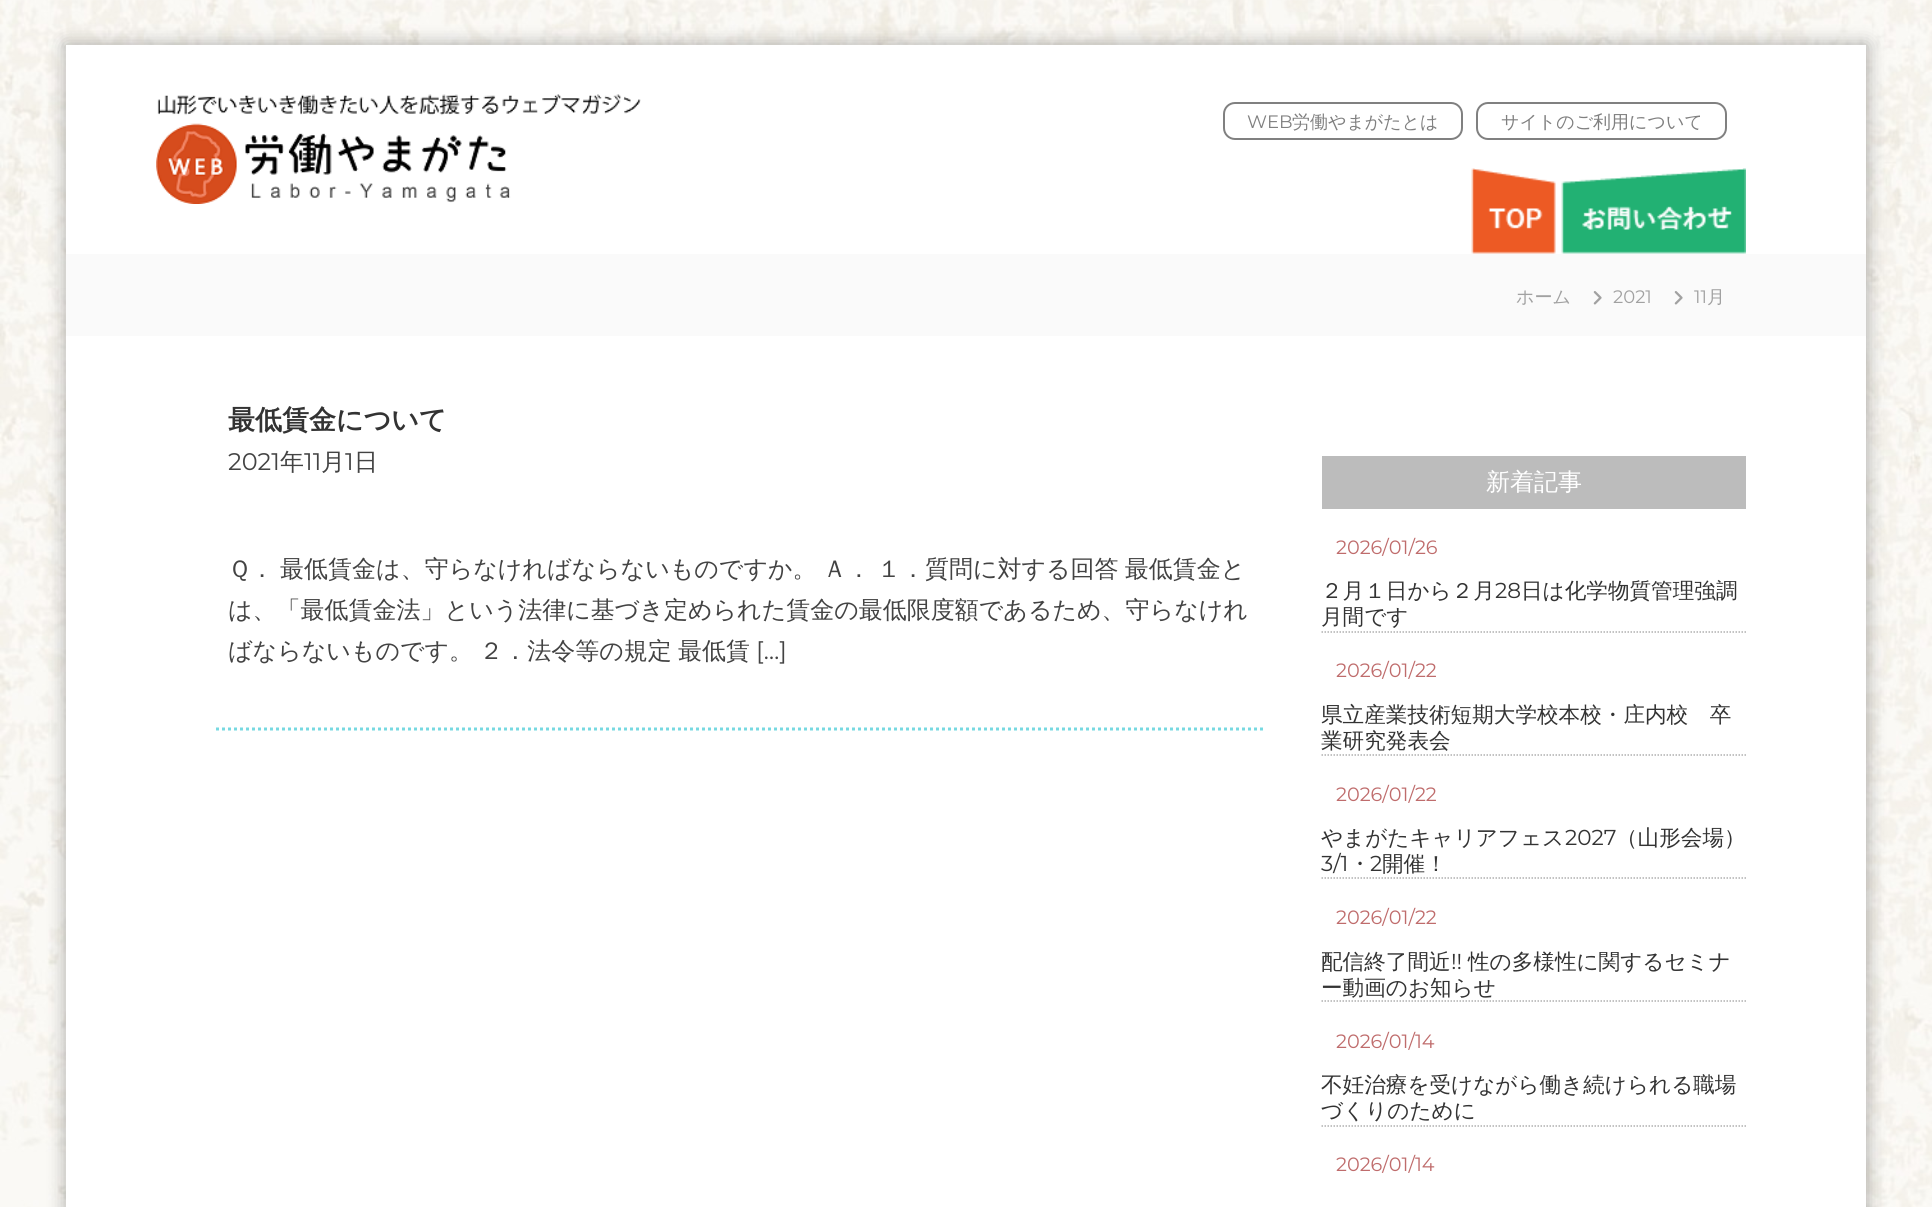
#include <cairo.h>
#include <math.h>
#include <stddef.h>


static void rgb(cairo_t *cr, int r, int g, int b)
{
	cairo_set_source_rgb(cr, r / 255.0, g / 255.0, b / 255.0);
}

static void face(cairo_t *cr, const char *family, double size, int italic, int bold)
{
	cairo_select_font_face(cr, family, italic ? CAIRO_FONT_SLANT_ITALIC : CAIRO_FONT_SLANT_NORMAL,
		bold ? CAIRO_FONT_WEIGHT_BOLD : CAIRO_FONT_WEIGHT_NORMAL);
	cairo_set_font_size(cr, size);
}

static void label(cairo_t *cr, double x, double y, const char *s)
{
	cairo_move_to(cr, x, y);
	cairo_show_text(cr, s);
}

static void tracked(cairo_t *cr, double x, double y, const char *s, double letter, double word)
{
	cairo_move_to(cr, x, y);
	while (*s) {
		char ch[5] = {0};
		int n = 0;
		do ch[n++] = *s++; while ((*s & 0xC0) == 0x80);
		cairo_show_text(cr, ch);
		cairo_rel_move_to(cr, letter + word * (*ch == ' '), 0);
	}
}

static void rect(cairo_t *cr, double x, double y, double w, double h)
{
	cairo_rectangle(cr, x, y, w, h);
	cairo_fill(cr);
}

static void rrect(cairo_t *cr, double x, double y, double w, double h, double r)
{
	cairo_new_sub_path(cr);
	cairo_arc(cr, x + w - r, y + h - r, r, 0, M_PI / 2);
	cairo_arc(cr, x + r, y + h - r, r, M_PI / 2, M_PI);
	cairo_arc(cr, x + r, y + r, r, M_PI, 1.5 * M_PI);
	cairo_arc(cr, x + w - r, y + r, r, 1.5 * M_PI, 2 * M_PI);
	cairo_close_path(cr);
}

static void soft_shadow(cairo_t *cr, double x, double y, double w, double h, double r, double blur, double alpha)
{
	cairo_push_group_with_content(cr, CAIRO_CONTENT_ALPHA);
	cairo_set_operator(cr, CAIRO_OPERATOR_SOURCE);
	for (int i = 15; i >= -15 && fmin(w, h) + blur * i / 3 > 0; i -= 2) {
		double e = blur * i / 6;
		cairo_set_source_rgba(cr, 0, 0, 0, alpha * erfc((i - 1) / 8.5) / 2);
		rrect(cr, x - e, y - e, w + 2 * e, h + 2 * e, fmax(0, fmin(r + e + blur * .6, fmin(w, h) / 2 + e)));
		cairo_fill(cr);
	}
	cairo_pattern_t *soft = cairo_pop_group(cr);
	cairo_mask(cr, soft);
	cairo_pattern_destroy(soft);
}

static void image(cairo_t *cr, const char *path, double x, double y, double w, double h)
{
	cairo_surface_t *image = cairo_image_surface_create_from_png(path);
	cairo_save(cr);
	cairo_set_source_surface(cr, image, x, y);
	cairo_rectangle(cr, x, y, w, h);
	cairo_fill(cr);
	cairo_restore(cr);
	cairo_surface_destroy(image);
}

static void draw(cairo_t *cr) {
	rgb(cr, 255, 255, 255);
	cairo_paint(cr);
	image(cr, "image0.png", 0, 0, 1932, 1207);
	rgb(cr, 0, 0, 0);
	soft_shadow(cr, 65, 44, 1803, 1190, 0, 9, 0.3);
	rgb(cr, 255, 255, 255);
	rect(cr, 66, 45, 1800, 1162);
	image(cr, "image1.png", 156, 94, 485, 110);
	rrect(cr, 1224, 103, 238, 36, 11);
	rgb(cr, 128, 128, 128);
	cairo_stroke(cr);
	face(cr, "Montserrat", 18, 0, 0);
	label(cr, 1247, 128, "WEB");
	face(cr, "WenQuanYi Zen Hei Medium", 18, 0, 0);
	label(cr, 1292, 128, "労働やまがたとは");
	rrect(cr, 1477, 103, 249, 36, 11);
	cairo_stroke(cr);
	label(cr, 1501, 128, "サイトのご利用について");
	image(cr, "image2.png", 1471, 168, 85, 86);
	image(cr, "image3.png", 1561, 168, 185, 86);
	rgb(cr, 250, 250, 250);
	rect(cr, 66, 254, 1800, 82);
	rgb(cr, 161, 161, 161);
	label(cr, 1516, 303, "ホーム");
	image(cr, "image4.png", 1593, 291, 9, 14);
	face(cr, "Montserrat", 18, 0, 0);
	label(cr, 1613, 303, "2021");
	image(cr, "image4.png", 1674, 291, 9, 14);
	label(cr, 1694, 303, "11");
	face(cr, "WenQuanYi Zen Hei Medium", 18, 0, 0);
	label(cr, 1707, 303, "月");
	cairo_new_path(cr);
	cairo_move_to(cr, 216, 729);
	cairo_line_to(cr, 1263, 729);
	rgb(cr, 119, 217, 225);
	cairo_set_line_width(cr, 3);
	cairo_set_dash(cr, (double[]){3, 3}, 2, 0);
	cairo_stroke(cr);
	face(cr, "WenQuanYi Zen Hei", 27, 0, 1);
	rgb(cr, 51, 51, 51);
	label(cr, 228, 429, "最低賃金について");
	face(cr, "Montserrat", 24, 0, 0);
	rgb(cr, 67, 67, 67);
	label(cr, 228, 470, "2021");
	face(cr, "WenQuanYi Zen Hei Medium", 24, 0, 0);
	label(cr, 280, 470, "年");
	face(cr, "Montserrat", 24, 0, 0);
	label(cr, 304, 470, "11");
	face(cr, "WenQuanYi Zen Hei Medium", 24, 0, 0);
	label(cr, 321, 470, "月");
	face(cr, "Montserrat", 24, 0, 0);
	label(cr, 345, 470, "1");
	face(cr, "WenQuanYi Zen Hei Medium", 24, 0, 0);
	label(cr, 354, 470, "日");
	tracked(cr, 228, 577, "Ｑ． 最低賃金は、守らなければならないものですか。 Ａ． １．質問に対する回答 最低賃金と", 0, -1);
	label(cr, 228, 618, "は、「最低賃金法」という法律に基づき定められた賃金の最低限度額であるため、守らなけれ");
	tracked(cr, 228, 659, "ばならないものです。 ２．法令等の規定 最低賃", 0, -1);
	face(cr, "Montserrat", 24, 0, 0);
	label(cr, 756, 659, "[…]");
	rgb(cr, 188, 188, 188);
	rect(cr, 1322, 456, 424, 53);
	face(cr, "WenQuanYi Zen Hei Medium", 24, 0, 0);
	rgb(cr, 255, 255, 255);
	label(cr, 1486, 490, "新着記事");
	cairo_new_path(cr);
	cairo_move_to(cr, 1321.5, 632);
	cairo_line_to(cr, 1746, 632);
	rgb(cr, 175, 175, 175);
	cairo_set_line_width(cr, 1.5);
	cairo_set_dash(cr, (double[]){1.5, 1.5}, 2, 0);
	cairo_stroke(cr);
	face(cr, "Montserrat", 19.25, 0, 0);
	rgb(cr, 191, 108, 108);
	label(cr, 1336, 554, "2026/01/26");
	face(cr, "WenQuanYi Zen Hei Medium", 21.6, 0, 0);
	rgb(cr, 51, 51, 51);
	label(cr, 1321, 598, "２月１日から２月");
	face(cr, "Montserrat", 21.6, 0, 0);
	label(cr, 1495, 598, "28");
	face(cr, "WenQuanYi Zen Hei Medium", 21.6, 0, 0);
	label(cr, 1521, 598, "日は化学物質管理強調");
	label(cr, 1321, 624, "月間です");
	cairo_new_path(cr);
	cairo_move_to(cr, 1321.5, 755);
	cairo_line_to(cr, 1746, 755);
	rgb(cr, 175, 175, 175);
	cairo_stroke(cr);
	face(cr, "Montserrat", 19.25, 0, 0);
	rgb(cr, 191, 108, 108);
	label(cr, 1336, 677, "2026/01/22");
	face(cr, "WenQuanYi Zen Hei Medium", 21.6, 0, 0);
	rgb(cr, 51, 51, 51);
	label(cr, 1321, 722, "県立産業技術短期大学校本校・庄内校　卒");
	label(cr, 1321, 748, "業研究発表会");
	cairo_new_path(cr);
	cairo_move_to(cr, 1321.5, 878);
	cairo_line_to(cr, 1746, 878);
	rgb(cr, 175, 175, 175);
	cairo_stroke(cr);
	face(cr, "Montserrat", 19.25, 0, 0);
	rgb(cr, 191, 108, 108);
	label(cr, 1336, 801, "2026/01/22");
	face(cr, "WenQuanYi Zen Hei Medium", 21.6, 0, 0);
	rgb(cr, 51, 51, 51);
	label(cr, 1321, 845, "やまがたキャリアフェス");
	face(cr, "Montserrat", 21.6, 0, 0);
	label(cr, 1565, 845, "2027");
	face(cr, "WenQuanYi Zen Hei Medium", 21.6, 0, 0);
	label(cr, 1616, 845, "（山形会場）");
	face(cr, "Montserrat", 21.6, 0, 0);
	label(cr, 1321, 871, "3/1");
	face(cr, "WenQuanYi Zen Hei Medium", 21.6, 0, 0);
	label(cr, 1349, 871, "・");
	face(cr, "Montserrat", 21.6, 0, 0);
	label(cr, 1370, 871, "2");
	face(cr, "WenQuanYi Zen Hei Medium", 21.6, 0, 0);
	label(cr, 1382, 871, "開催！");
	cairo_new_path(cr);
	cairo_move_to(cr, 1321.5, 1001);
	cairo_line_to(cr, 1746, 1001);
	rgb(cr, 175, 175, 175);
	cairo_stroke(cr);
	face(cr, "Montserrat", 19.25, 0, 0);
	rgb(cr, 191, 108, 108);
	label(cr, 1336, 924, "2026/01/22");
	face(cr, "WenQuanYi Zen Hei Medium", 21.6, 0, 0);
	rgb(cr, 51, 51, 51);
	label(cr, 1321, 969, "配信終了間近");
	face(cr, "Montserrat", 21.6, 0, 0);
	label(cr, 1451, 969, "!!");
	face(cr, "WenQuanYi Zen Hei Medium", 21.6, 0, 0);
	label(cr, 1468, 969, "性の多様性に関するセミナ");
	label(cr, 1321, 995, "ー動画のお知らせ");
	cairo_new_path(cr);
	cairo_move_to(cr, 1321.5, 1126);
	cairo_line_to(cr, 1746, 1126);
	rgb(cr, 175, 175, 175);
	cairo_stroke(cr);
	face(cr, "Montserrat", 19.25, 0, 0);
	rgb(cr, 191, 108, 108);
	label(cr, 1336, 1048, "2026/01/14");
	face(cr, "WenQuanYi Zen Hei Medium", 21.6, 0, 0);
	rgb(cr, 51, 51, 51);
	label(cr, 1321, 1092, "不妊治療を受けながら働き続けられる職場");
	label(cr, 1321, 1118, "づくりのために");
	face(cr, "Montserrat", 19.25, 0, 0);
	rgb(cr, 191, 108, 108);
	label(cr, 1336, 1171, "2026/01/14");
}

int main(void) {
	cairo_surface_t *surface = cairo_image_surface_create(CAIRO_FORMAT_RGB24, 1932, 1207);
	cairo_t *cr = cairo_create(surface);
	cairo_font_options_t *options = cairo_font_options_create();
	cairo_font_options_set_hint_metrics(options, CAIRO_HINT_METRICS_OFF);
	cairo_font_options_set_hint_style(options, CAIRO_HINT_STYLE_NONE);
	cairo_set_font_options(cr, options);
	cairo_set_miter_limit(cr, 4);
	draw(cr);
	cairo_surface_write_to_png(surface, "render.png");
	cairo_font_options_destroy(options);
	cairo_destroy(cr);
	cairo_surface_destroy(surface);
	return 0;
}
